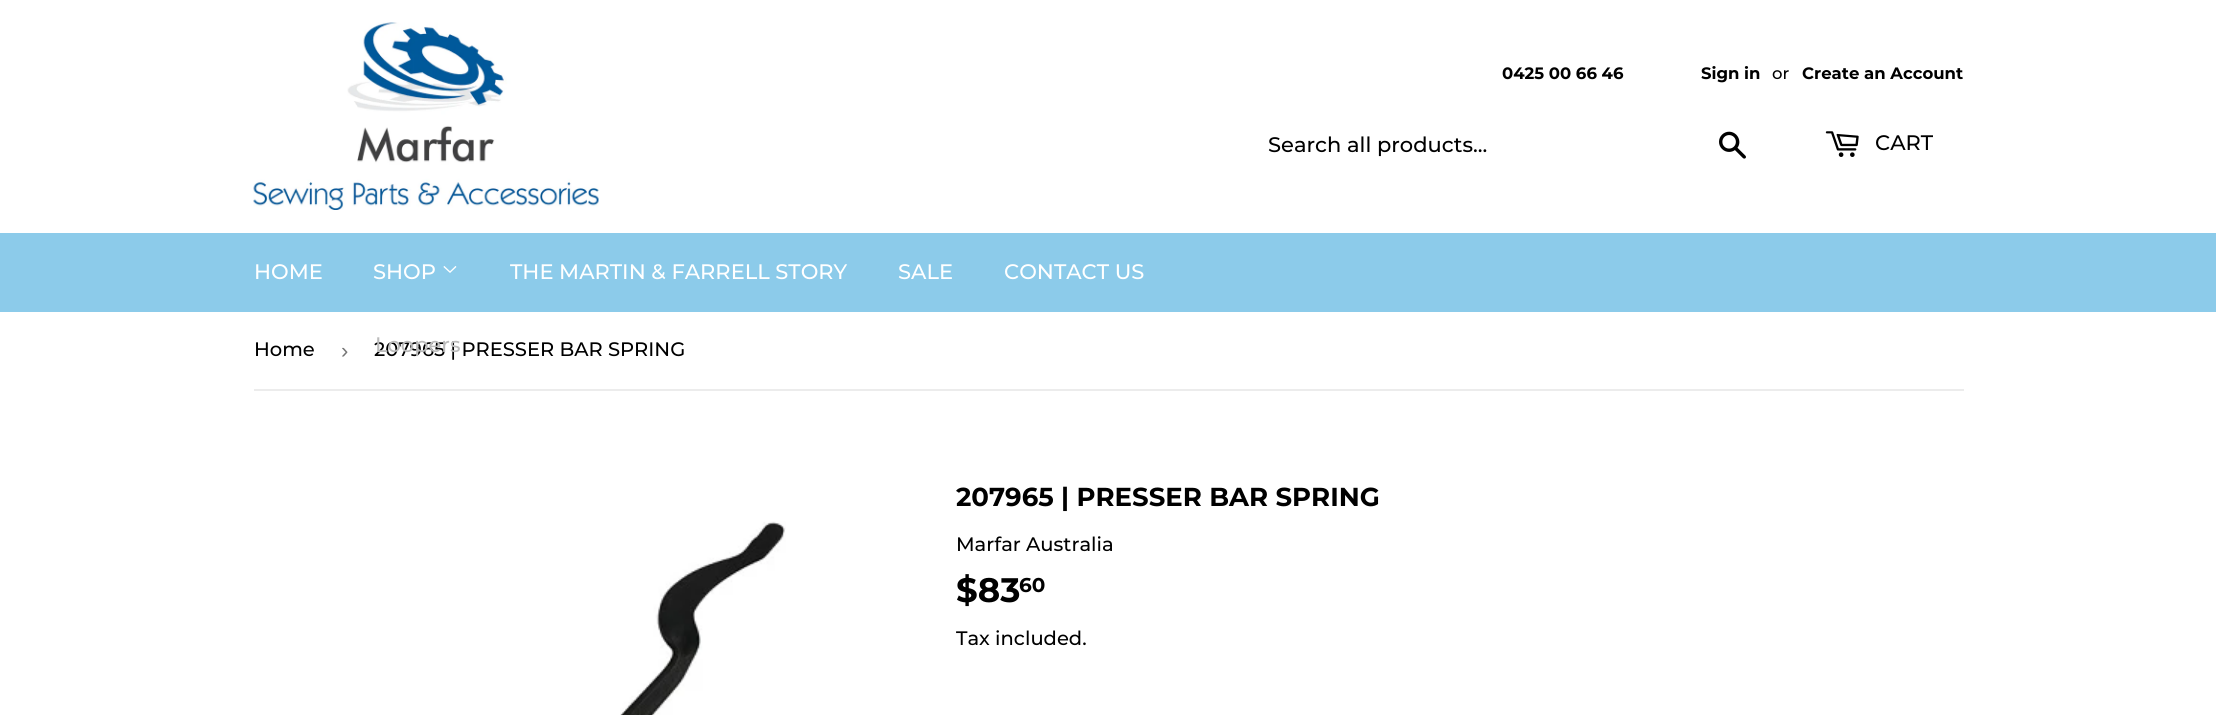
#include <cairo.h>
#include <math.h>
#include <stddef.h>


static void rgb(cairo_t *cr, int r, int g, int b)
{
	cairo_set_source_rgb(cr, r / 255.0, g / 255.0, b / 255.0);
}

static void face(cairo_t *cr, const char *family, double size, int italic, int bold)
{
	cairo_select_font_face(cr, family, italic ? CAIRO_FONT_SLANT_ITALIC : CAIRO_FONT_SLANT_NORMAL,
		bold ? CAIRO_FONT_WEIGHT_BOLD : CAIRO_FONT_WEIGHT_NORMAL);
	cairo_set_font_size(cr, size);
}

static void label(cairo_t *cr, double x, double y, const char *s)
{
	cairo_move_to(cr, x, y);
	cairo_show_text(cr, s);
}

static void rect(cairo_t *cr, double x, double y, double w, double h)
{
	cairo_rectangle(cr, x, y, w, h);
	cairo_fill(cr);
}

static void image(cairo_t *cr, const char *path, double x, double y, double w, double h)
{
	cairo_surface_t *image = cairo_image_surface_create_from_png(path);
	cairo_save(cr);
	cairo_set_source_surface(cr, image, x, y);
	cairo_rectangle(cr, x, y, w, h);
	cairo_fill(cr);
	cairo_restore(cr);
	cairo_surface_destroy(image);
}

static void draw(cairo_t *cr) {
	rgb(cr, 255, 255, 255);
	cairo_paint(cr);
	image(cr, "image0.png", 253, 22, 346, 188);
	face(cr, "Montserrat", 16.5, 0, 1);
	rgb(cr, 0, 0, 0);
	label(cr, 1502, 79, "0425 00 66 46");
	label(cr, 1701, 79, "Sign in");
	face(cr, "Montserrat Medium", 16.5, 0, 0);
	label(cr, 1772, 79, "or");
	face(cr, "Montserrat", 16.5, 0, 1);
	label(cr, 1802, 79, "Create an Account");
	face(cr, "Montserrat Medium", 21, 0, 0);
	label(cr, 1268, 152, "Search all products...");
	image(cr, "image1.png", 1719, 131, 27, 28);
	image(cr, "image2.png", 1825, 131, 34, 26);
	label(cr, 1875, 150, "CART");
	rgb(cr, 140, 203, 234);
	rect(cr, 0, 233, 2216, 79);
	rgb(cr, 255, 255, 255);
	label(cr, 254, 279, "HOME");
	label(cr, 373, 279, "SHOP");
	image(cr, "image3.png", 443, 266, 14, 7);
	face(cr, "Montserrat Medium", 19.5, 0, 0);
	rgb(cr, 0, 0, 0);
	label(cr, 374, 356, "207965 | PRESSER BAR SPRING");
	face(cr, "Montserrat Medium", 21, 0, 0);
	rgb(cr, 187, 187, 187);
	label(cr, 375, 352, "Loopers");
	rgb(cr, 255, 255, 255);
	label(cr, 510, 279, "THE MARTIN & FARRELL STORY");
	label(cr, 898, 279, "SALE");
	label(cr, 1004, 279, "CONTACT US");
	rgb(cr, 236, 236, 236);
	rect(cr, 254, 389, 1710, 2);
	face(cr, "Montserrat Medium", 19.5, 0, 0);
	rgb(cr, 0, 0, 0);
	label(cr, 254, 356, "Home");
	face(cr, "Liberation Sans", 22, 0, 0);
	rgb(cr, 118, 118, 118);
	label(cr, 341, 358, "›");
	image(cr, "image4.png", 620, 521, 166, 194);
	face(cr, "Montserrat", 26, 0, 1);
	rgb(cr, 0, 0, 0);
	label(cr, 956, 506, "207965 | PRESSER BAR SPRING");
	face(cr, "Montserrat Medium", 19.5, 0, 0);
	label(cr, 956, 551, "Marfar Australia");
	face(cr, "Montserrat", 34, 0, 1);
	label(cr, 956, 602, "$83");
	face(cr, "Montserrat", 20, 0, 1);
	label(cr, 1019, 592, "60");
	face(cr, "Montserrat Medium", 19.5, 0, 0);
	label(cr, 956, 645, "Tax included.");
}

int main(void) {
	cairo_surface_t *surface = cairo_image_surface_create(CAIRO_FORMAT_RGB24, 2216, 715);
	cairo_t *cr = cairo_create(surface);
	cairo_font_options_t *options = cairo_font_options_create();
	cairo_font_options_set_hint_metrics(options, CAIRO_HINT_METRICS_OFF);
	cairo_font_options_set_hint_style(options, CAIRO_HINT_STYLE_NONE);
	cairo_set_font_options(cr, options);
	cairo_set_miter_limit(cr, 4);
	draw(cr);
	cairo_surface_write_to_png(surface, "render.png");
	cairo_font_options_destroy(options);
	cairo_destroy(cr);
	cairo_surface_destroy(surface);
	return 0;
}
